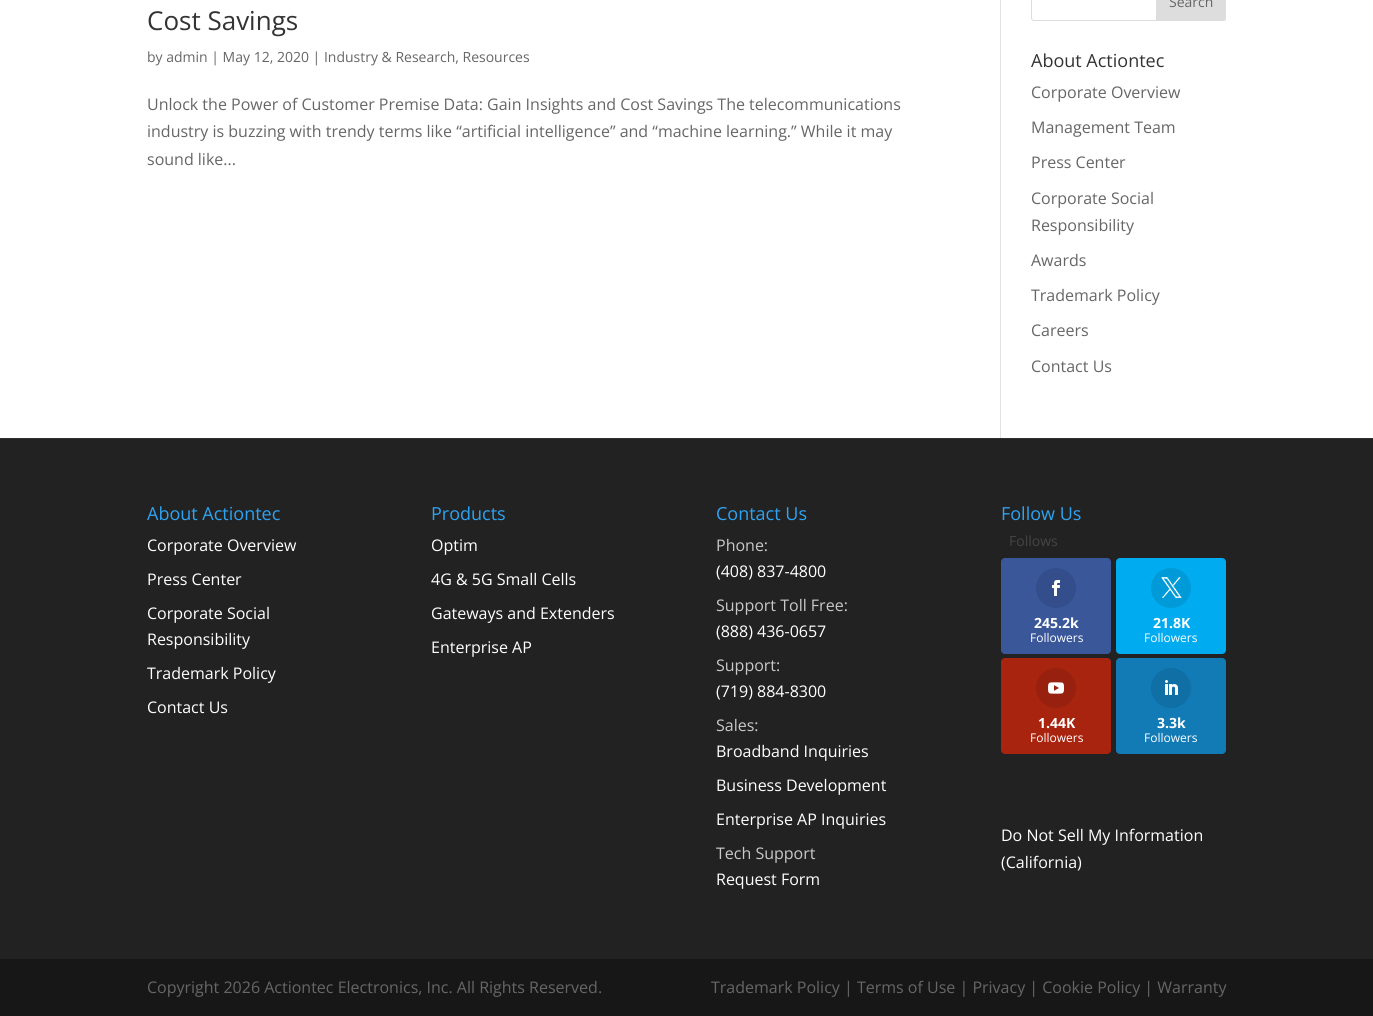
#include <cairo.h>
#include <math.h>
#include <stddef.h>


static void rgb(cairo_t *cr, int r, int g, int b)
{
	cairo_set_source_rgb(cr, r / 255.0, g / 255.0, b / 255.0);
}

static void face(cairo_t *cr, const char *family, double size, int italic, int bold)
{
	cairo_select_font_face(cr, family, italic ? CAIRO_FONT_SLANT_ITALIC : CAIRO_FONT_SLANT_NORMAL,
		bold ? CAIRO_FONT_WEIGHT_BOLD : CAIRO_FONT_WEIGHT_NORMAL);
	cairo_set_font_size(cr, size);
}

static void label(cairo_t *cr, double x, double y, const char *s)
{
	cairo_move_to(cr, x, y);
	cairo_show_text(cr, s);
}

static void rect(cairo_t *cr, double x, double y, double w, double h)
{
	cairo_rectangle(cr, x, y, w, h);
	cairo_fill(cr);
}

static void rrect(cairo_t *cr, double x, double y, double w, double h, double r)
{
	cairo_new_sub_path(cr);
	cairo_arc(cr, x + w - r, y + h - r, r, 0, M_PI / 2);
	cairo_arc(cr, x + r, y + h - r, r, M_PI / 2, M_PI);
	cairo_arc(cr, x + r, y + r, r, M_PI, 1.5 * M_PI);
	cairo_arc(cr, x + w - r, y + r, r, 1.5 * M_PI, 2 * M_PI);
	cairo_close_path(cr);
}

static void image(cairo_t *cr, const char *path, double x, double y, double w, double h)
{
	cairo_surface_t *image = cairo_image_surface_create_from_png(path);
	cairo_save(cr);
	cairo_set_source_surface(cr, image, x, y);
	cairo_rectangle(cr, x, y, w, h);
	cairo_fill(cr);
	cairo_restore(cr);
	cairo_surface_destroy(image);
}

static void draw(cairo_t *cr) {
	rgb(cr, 255, 255, 255);
	cairo_paint(cr);
	face(cr, "Open Sans", 26, 0, 0);
	rgb(cr, 51, 51, 51);
	label(cr, 147, 30, "Cost Savings");
	face(cr, "Open Sans", 14, 0, 0);
	rgb(cr, 102, 102, 102);
	label(cr, 147, 62, "by admin | May 12, 2020 | Industry & Research, Resources");
	face(cr, "Open Sans", 16, 0, 0);
	label(cr, 147, 110, "Unlock the Power of Customer Premise Data: Gain Insights and Cost Savings The telecommunications");
	label(cr, 147, 137, "industry is buzzing with trendy terms like “artificial intelligence” and “machine learning.” While it may");
	label(cr, 147, 165, "sound like...");
	rrect(cr, 1031.5, -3.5, 194, 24, 2.5);
	rgb(cr, 221, 221, 221);
	cairo_set_line_width(cr, 1);
	cairo_stroke(cr);
	cairo_new_path(cr);
	cairo_move_to(cr, 1156.5, -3.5);
	cairo_line_to(cr, 1223, -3.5);
	cairo_curve_to(cr, 1224.5, -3.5, 1225.5, -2.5, 1225.5, -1);
	cairo_line_to(cr, 1225.5, 18);
	cairo_curve_to(cr, 1225.5, 19.5, 1224.5, 20.5, 1223, 20.5);
	cairo_line_to(cr, 1156.5, 20.5);
	cairo_close_path(cr);
	cairo_fill_preserve(cr);
	cairo_stroke(cr);
	face(cr, "Open Sans", 14, 0, 0);
	rgb(cr, 102, 102, 102);
	label(cr, 1169, 7, "Search");
	face(cr, "Open Sans", 18, 0, 0);
	rgb(cr, 51, 51, 51);
	label(cr, 1031, 67, "About Actiontec");
	face(cr, "Open Sans", 16, 0, 0);
	rgb(cr, 102, 102, 102);
	label(cr, 1031, 98, "Corporate Overview");
	label(cr, 1031, 133, "Management Team");
	label(cr, 1031, 168, "Press Center");
	label(cr, 1031, 204, "Corporate Social");
	label(cr, 1031, 231, "Responsibility");
	label(cr, 1031, 266, "Awards");
	label(cr, 1031, 301, "Trademark Policy");
	label(cr, 1031, 336, "Careers");
	label(cr, 1031, 372, "Contact Us");
	rgb(cr, 226, 226, 226);
	rect(cr, 1000, 0, 1, 438);
	rgb(cr, 34, 34, 34);
	rect(cr, 0, 439, 1373, 520);
	rgb(cr, 47, 49, 48);
	rect(cr, 0, 438, 1373, 1);
	face(cr, "Open Sans", 18, 0, 0);
	rgb(cr, 46, 163, 242);
	label(cr, 147, 520, "About Actiontec");
	face(cr, "Open Sans", 16, 0, 0);
	rgb(cr, 255, 255, 255);
	label(cr, 147, 551, "Corporate Overview");
	label(cr, 147, 585, "Press Center");
	label(cr, 147, 619, "Corporate Social");
	label(cr, 147, 645, "Responsibility");
	label(cr, 147, 679, "Trademark Policy");
	label(cr, 147, 713, "Contact Us");
	face(cr, "Open Sans", 18, 0, 0);
	rgb(cr, 46, 163, 242);
	label(cr, 431, 520, "Products");
	face(cr, "Open Sans", 16, 0, 0);
	rgb(cr, 255, 255, 255);
	label(cr, 431, 551, "Optim");
	label(cr, 431, 585, "4G & 5G Small Cells");
	label(cr, 431, 619, "Gateways and Extenders");
	label(cr, 431, 653, "Enterprise AP");
	face(cr, "Open Sans", 18, 0, 0);
	rgb(cr, 46, 163, 242);
	label(cr, 716, 520, "Contact Us");
	face(cr, "Open Sans", 16, 0, 0);
	rgb(cr, 201, 201, 201);
	label(cr, 716, 551, "Phone:");
	rgb(cr, 255, 255, 255);
	label(cr, 716, 577, "(408) 837-4800");
	rgb(cr, 201, 201, 201);
	label(cr, 716, 611, "Support Toll Free:");
	rgb(cr, 255, 255, 255);
	label(cr, 716, 637, "(888) 436-0657");
	rgb(cr, 201, 201, 201);
	label(cr, 716, 671, "Support:");
	rgb(cr, 255, 255, 255);
	label(cr, 716, 697, "(719) 884-8300");
	rgb(cr, 201, 201, 201);
	label(cr, 716, 731, "Sales:");
	rgb(cr, 255, 255, 255);
	label(cr, 716, 757, "Broadband Inquiries");
	label(cr, 716, 791, "Business Development");
	label(cr, 716, 825, "Enterprise AP Inquiries");
	rgb(cr, 201, 201, 201);
	label(cr, 716, 859, "Tech Support");
	rgb(cr, 255, 255, 255);
	label(cr, 716, 885, "Request Form");
	face(cr, "Open Sans", 18, 0, 0);
	rgb(cr, 46, 163, 242);
	label(cr, 1001, 520, "Follow Us");
	face(cr, "Open Sans", 14, 0, 0);
	rgb(cr, 68, 68, 68);
	label(cr, 1009, 546, "Follows");
	rgb(cr, 58, 87, 154);
	rrect(cr, 1001, 558, 110, 96, 4);
	cairo_fill(cr);
	rgb(cr, 52, 78, 139);
	cairo_arc(cr, 1056, 588, 20, 0, 2 * M_PI);
	cairo_fill(cr);
	image(cr, "image0.png", 1052, 580, 8, 16);
	face(cr, "Open Sans", 14, 0, 1);
	rgb(cr, 255, 255, 255);
	label(cr, 1034, 628, "245.2k");
	face(cr, "Open Sans", 12, 0, 0);
	label(cr, 1030, 642, "Followers");
	rgb(cr, 0, 171, 240);
	rrect(cr, 1116, 558, 110, 96, 4);
	cairo_fill(cr);
	rgb(cr, 0, 154, 216);
	cairo_arc(cr, 1171, 588, 20, 0, 2 * M_PI);
	cairo_fill(cr);
	image(cr, "image1.png", 1161, 577, 21, 21);
	face(cr, "Open Sans", 14, 0, 1);
	rgb(cr, 255, 255, 255);
	label(cr, 1153, 628, "21.8K");
	face(cr, "Open Sans", 12, 0, 0);
	label(cr, 1144, 642, "Followers");
	rgb(cr, 168, 36, 15);
	rrect(cr, 1001, 658, 110, 96, 4);
	cairo_fill(cr);
	rgb(cr, 151, 32, 14);
	cairo_arc(cr, 1056, 688, 20, 0, 2 * M_PI);
	cairo_fill(cr);
	image(cr, "image2.png", 1048, 682, 16, 12);
	face(cr, "Open Sans", 14, 0, 1);
	rgb(cr, 255, 255, 255);
	label(cr, 1038, 728, "1.44K");
	face(cr, "Open Sans", 12, 0, 0);
	label(cr, 1030, 742, "Followers");
	rgb(cr, 18, 123, 182);
	rrect(cr, 1116, 658, 110, 96, 4);
	cairo_fill(cr);
	rgb(cr, 16, 111, 164);
	cairo_arc(cr, 1171, 688, 20, 0, 2 * M_PI);
	cairo_fill(cr);
	image(cr, "image3.png", 1165, 680, 13, 15);
	face(cr, "Open Sans", 14, 0, 1);
	rgb(cr, 255, 255, 255);
	label(cr, 1157, 728, "3.3k");
	face(cr, "Open Sans", 12, 0, 0);
	label(cr, 1144, 742, "Followers");
	face(cr, "Open Sans", 16, 0, 0);
	label(cr, 1001, 841, "Do Not Sell My Information");
	label(cr, 1001, 868, "(California)");
	rgb(cr, 23, 23, 23);
	rect(cr, 0, 959, 1373, 57);
	rgb(cr, 102, 102, 102);
	label(cr, 147, 993, "Copyright 2026 Actiontec Electronics, Inc. All Rights Reserved.");
	label(cr, 711, 993, "Trademark Policy | Terms of Use | Privacy | Cookie Policy | Warranty");
}

int main(void) {
	cairo_surface_t *surface = cairo_image_surface_create(CAIRO_FORMAT_RGB24, 1373, 1016);
	cairo_t *cr = cairo_create(surface);
	cairo_font_options_t *options = cairo_font_options_create();
	cairo_font_options_set_hint_metrics(options, CAIRO_HINT_METRICS_OFF);
	cairo_font_options_set_hint_style(options, CAIRO_HINT_STYLE_NONE);
	cairo_set_font_options(cr, options);
	cairo_set_miter_limit(cr, 4);
	draw(cr);
	cairo_surface_write_to_png(surface, "render.png");
	cairo_font_options_destroy(options);
	cairo_destroy(cr);
	cairo_surface_destroy(surface);
	return 0;
}
